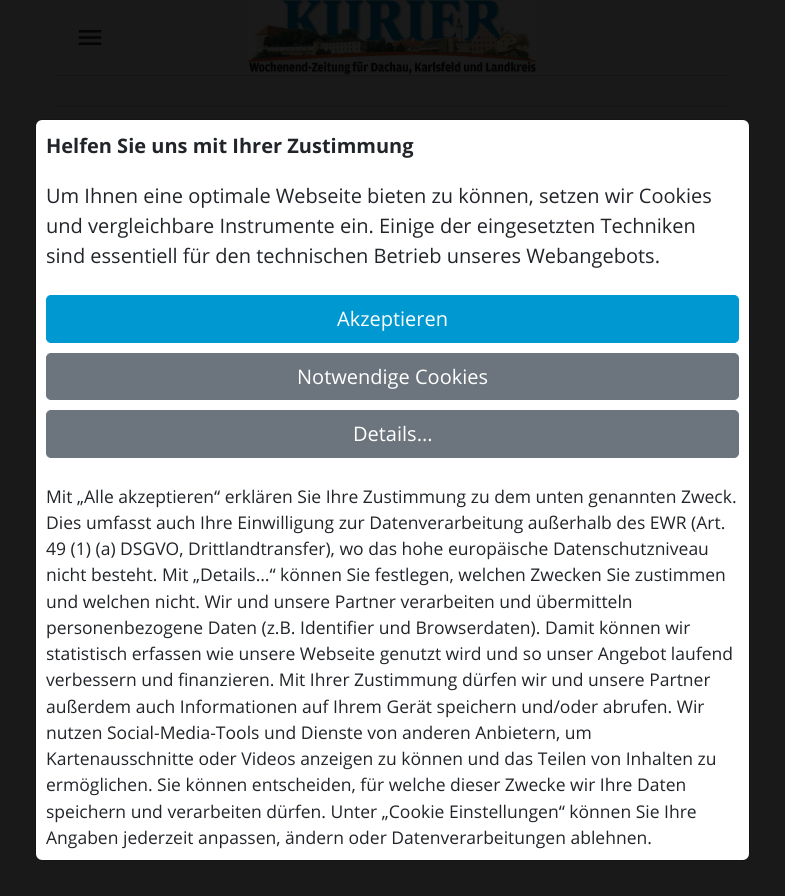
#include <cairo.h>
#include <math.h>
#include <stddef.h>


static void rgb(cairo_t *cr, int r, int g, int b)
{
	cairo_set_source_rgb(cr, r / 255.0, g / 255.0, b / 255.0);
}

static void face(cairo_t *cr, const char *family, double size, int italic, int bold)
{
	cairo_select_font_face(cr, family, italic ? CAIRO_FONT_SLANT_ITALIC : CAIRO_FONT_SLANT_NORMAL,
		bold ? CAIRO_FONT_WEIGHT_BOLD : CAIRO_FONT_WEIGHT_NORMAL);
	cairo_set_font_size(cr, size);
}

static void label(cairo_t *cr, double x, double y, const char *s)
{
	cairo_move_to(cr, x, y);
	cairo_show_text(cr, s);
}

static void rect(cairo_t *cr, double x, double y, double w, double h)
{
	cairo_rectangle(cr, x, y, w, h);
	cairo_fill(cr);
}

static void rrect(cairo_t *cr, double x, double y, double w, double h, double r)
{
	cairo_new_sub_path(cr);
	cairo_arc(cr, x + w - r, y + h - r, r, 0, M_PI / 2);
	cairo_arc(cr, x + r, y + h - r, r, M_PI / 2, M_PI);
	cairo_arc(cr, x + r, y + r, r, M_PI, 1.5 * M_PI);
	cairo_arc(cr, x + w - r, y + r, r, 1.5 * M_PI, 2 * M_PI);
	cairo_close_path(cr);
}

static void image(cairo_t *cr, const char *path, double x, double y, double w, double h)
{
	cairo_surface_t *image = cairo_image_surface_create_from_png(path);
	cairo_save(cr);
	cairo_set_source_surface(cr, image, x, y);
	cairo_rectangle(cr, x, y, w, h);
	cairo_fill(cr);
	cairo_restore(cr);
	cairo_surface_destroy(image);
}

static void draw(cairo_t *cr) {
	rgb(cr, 25, 25, 25);
	cairo_paint(cr);
	image(cr, "image0.png", 78, 30, 24, 15);
	image(cr, "image1.png", 247, 0, 290, 75);
	rgb(cr, 17, 21, 24);
	rect(cr, 55, 75, 675, 1);
	rect(cr, 55, 106, 675, 1);
	rgb(cr, 255, 255, 255);
	rrect(cr, 36, 120, 713, 740, 6);
	cairo_fill(cr);
	rrect(cr, 35.5, 119.5, 714, 741, 7.5);
	cairo_set_source_rgba(cr, 0, 0, 0, 0.18);
	cairo_set_line_width(cr, 1);
	cairo_stroke(cr);
	face(cr, "Open Sans", 20, 0, 1);
	rgb(cr, 33, 37, 41);
	label(cr, 46, 153, "Helfen Sie uns mit Ihrer Zustimmung");
	face(cr, "Open Sans", 20, 0, 0);
	label(cr, 46, 203, "Um Ihnen eine optimale Webseite bieten zu können, setzen wir Cookies");
	label(cr, 46, 233, "und vergleichbare Instrumente ein. Einige der eingesetzten Techniken");
	label(cr, 46, 263, "sind essentiell für den technischen Betrieb unseres Webangebots.");
	rgb(cr, 0, 152, 208);
	rrect(cr, 46.5, 295.5, 692, 47, 4.5);
	cairo_fill_preserve(cr);
	cairo_stroke(cr);
	rgb(cr, 255, 255, 255);
	label(cr, 337, 326, "Akzeptieren");
	rgb(cr, 108, 117, 125);
	rrect(cr, 46.5, 353.5, 692, 46, 4.5);
	cairo_fill_preserve(cr);
	cairo_stroke(cr);
	rgb(cr, 255, 255, 255);
	label(cr, 297, 384, "Notwendige Cookies");
	rgb(cr, 108, 117, 125);
	rrect(cr, 46.5, 410.5, 692, 47, 4.5);
	cairo_fill_preserve(cr);
	cairo_stroke(cr);
	rgb(cr, 255, 255, 255);
	label(cr, 353, 441, "Details...");
	face(cr, "Open Sans", 17.5, 0, 0);
	rgb(cr, 33, 37, 41);
	label(cr, 46, 503, "Mit „Alle akzeptieren“ erklären Sie Ihre Zustimmung zu dem unten genannten Zweck.");
	label(cr, 46, 529, "Dies umfasst auch Ihre Einwilligung zur Datenverarbeitung außerhalb des EWR (Art.");
	label(cr, 46, 555, "49 (1) (a) DSGVO, Drittlandtransfer), wo das hohe europäische Datenschutzniveau");
	label(cr, 46, 581, "nicht besteht. Mit „Details…“ können Sie festlegen, welchen Zwecken Sie zustimmen");
	label(cr, 46, 608, "und welchen nicht. Wir und unsere Partner verarbeiten und übermitteln");
	label(cr, 46, 634, "personenbezogene Daten (z.B. Identifier und Browserdaten). Damit können wir");
	label(cr, 46, 660, "statistisch erfassen wie unsere Webseite genutzt wird und so unser Angebot laufend");
	label(cr, 46, 686, "verbessern und finanzieren. Mit Ihrer Zustimmung dürfen wir und unsere Partner");
	label(cr, 46, 713, "außerdem auch Informationen auf Ihrem Gerät speichern und/oder abrufen. Wir");
	label(cr, 46, 739, "nutzen Social-Media-Tools und Dienste von anderen Anbietern, um");
	label(cr, 46, 765, "Kartenausschnitte oder Videos anzeigen zu können und das Teilen von Inhalten zu");
	label(cr, 46, 791, "ermöglichen. Sie können entscheiden, für welche dieser Zwecke wir Ihre Daten");
	label(cr, 46, 818, "speichern und verarbeiten dürfen. Unter „Cookie Einstellungen“ können Sie Ihre");
	label(cr, 46, 844, "Angaben jederzeit anpassen, ändern oder Datenverarbeitungen ablehnen.");
}

int main(void) {
	cairo_surface_t *surface = cairo_image_surface_create(CAIRO_FORMAT_RGB24, 785, 896);
	cairo_t *cr = cairo_create(surface);
	cairo_font_options_t *options = cairo_font_options_create();
	cairo_font_options_set_hint_metrics(options, CAIRO_HINT_METRICS_OFF);
	cairo_font_options_set_hint_style(options, CAIRO_HINT_STYLE_NONE);
	cairo_set_font_options(cr, options);
	cairo_set_miter_limit(cr, 4);
	draw(cr);
	cairo_surface_write_to_png(surface, "render.png");
	cairo_font_options_destroy(options);
	cairo_destroy(cr);
	cairo_surface_destroy(surface);
	return 0;
}
